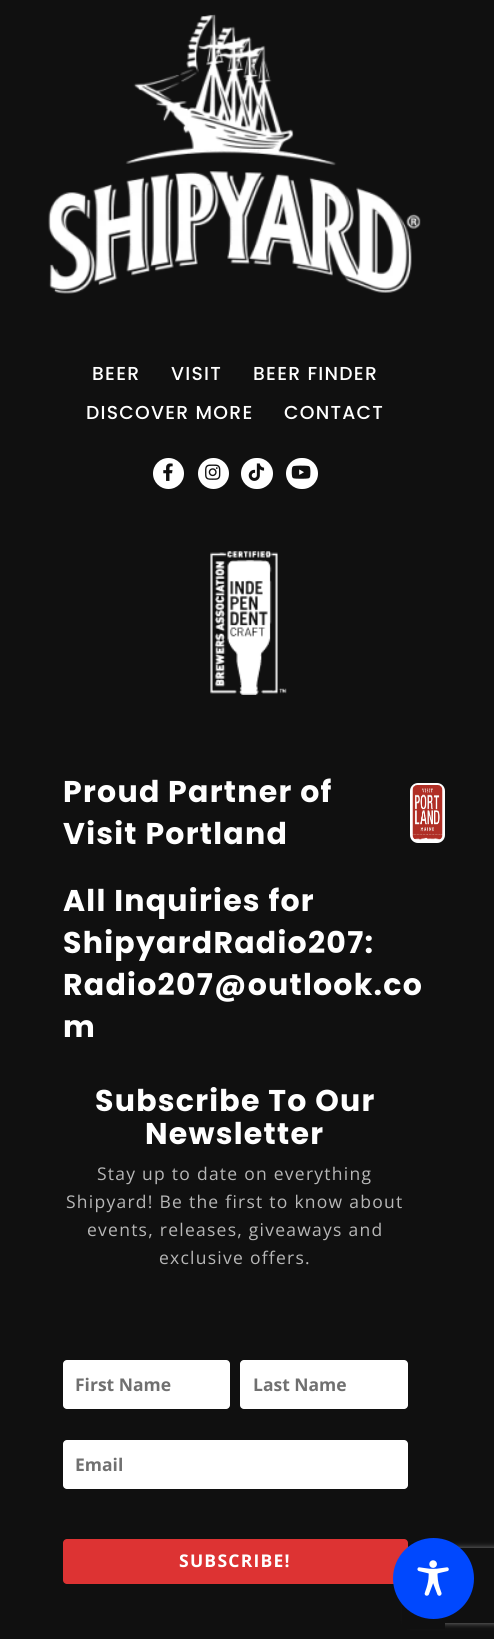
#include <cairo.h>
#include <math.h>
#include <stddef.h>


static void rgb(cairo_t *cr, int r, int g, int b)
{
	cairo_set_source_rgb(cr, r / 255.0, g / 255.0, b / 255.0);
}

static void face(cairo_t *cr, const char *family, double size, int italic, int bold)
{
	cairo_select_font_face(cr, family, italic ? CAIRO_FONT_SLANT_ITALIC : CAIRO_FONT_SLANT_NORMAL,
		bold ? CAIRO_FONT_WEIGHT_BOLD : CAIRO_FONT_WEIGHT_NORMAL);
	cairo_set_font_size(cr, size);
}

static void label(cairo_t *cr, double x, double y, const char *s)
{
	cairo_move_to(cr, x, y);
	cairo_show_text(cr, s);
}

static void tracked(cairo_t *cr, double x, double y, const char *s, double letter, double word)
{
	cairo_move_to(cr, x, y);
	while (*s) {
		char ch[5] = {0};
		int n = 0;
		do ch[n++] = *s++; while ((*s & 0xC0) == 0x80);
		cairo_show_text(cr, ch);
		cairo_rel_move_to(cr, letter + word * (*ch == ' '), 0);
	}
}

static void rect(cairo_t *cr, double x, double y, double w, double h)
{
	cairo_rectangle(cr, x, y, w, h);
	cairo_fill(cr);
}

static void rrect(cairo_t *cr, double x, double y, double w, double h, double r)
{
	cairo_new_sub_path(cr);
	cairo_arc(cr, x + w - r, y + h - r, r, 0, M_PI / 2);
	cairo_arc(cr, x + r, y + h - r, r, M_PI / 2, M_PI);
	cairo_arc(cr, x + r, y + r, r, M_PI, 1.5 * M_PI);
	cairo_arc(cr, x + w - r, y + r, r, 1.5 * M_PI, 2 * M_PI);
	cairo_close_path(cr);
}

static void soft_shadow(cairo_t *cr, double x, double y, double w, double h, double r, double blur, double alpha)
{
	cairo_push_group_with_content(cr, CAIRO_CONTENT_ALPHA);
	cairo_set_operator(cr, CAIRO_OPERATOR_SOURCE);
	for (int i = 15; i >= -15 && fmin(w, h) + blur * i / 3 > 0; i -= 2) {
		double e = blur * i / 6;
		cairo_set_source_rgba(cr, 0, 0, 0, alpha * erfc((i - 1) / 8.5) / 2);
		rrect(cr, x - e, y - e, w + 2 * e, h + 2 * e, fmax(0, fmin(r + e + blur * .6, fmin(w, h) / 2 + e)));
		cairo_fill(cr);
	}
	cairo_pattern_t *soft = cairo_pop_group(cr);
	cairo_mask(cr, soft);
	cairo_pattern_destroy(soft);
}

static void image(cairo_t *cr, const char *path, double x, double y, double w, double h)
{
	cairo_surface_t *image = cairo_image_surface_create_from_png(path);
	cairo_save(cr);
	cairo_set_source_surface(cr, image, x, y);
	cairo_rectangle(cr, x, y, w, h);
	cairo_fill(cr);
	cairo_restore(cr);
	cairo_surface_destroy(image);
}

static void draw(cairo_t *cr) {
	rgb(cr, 16, 16, 16);
	cairo_paint(cr);
	image(cr, "image0.png", 48, 14, 373, 280);
	face(cr, "Poppins Medium", 18.75, 0, 0);
	rgb(cr, 255, 255, 255);
	tracked(cr, 92, 380, "BEER", 1.25, 0);
	tracked(cr, 171, 380, "VISIT", 1.25, 0);
	tracked(cr, 253, 380, "BEER FINDER", 1.25, 0);
	tracked(cr, 86, 419, "DISCOVER MORE", 1.25, 0);
	tracked(cr, 284, 419, "CONTACT", 1.25, 0);
	cairo_new_path(cr);
	cairo_arc(cr, 168.5, 473.5, 15.5, 0, 2 * M_PI);
	cairo_fill(cr);
	image(cr, "image1.png", 163, 463, 10, 18);
	cairo_arc(cr, 213.5, 473.5, 15.5, 0, 2 * M_PI);
	cairo_fill(cr);
	image(cr, "image2.png", 205, 464, 16, 16);
	rrect(cr, 241, 458, 32, 31, 15.5);
	cairo_fill(cr);
	image(cr, "image3.png", 248, 463, 17, 18);
	rrect(cr, 286, 458, 32, 31, 15.5);
	cairo_fill(cr);
	image(cr, "image4.png", 291, 465, 20, 14);
	image(cr, "image5.png", 210, 551, 77, 144);
	face(cr, "Poppins", 30, 0, 1);
	tracked(cr, 63, 802, "Proud Partner of", 1.25, 0);
	rrect(cr, 410, 783, 35, 60, 8);
	cairo_fill(cr);
	image(cr, "image6.png", 412, 785, 31, 55);
	tracked(cr, 63, 844, "Visit Portland", 1.25, 0);
	tracked(cr, 63, 911, "All Inquiries for", 1.25, 0);
	tracked(cr, 63, 953, "ShipyardRadio207:", 1.25, 0);
	tracked(cr, 63, 995, "Radio207@outlook.co", 1.25, 0);
	tracked(cr, 63, 1037, "m", 1.25, 0);
	tracked(cr, 95, 1111, "Subscribe To Our", 1.25, 0);
	tracked(cr, 145, 1144, "Newsletter", 1.25, 0);
	face(cr, "Open Sans", 17.5, 0, 0);
	rgb(cr, 183, 183, 183);
	tracked(cr, 97, 1180, "Stay up to date on everything", 1.25, 0);
	tracked(cr, 66, 1208, "Shipyard! Be the first to know about", 1.25, 0);
	tracked(cr, 87, 1236, "events, releases, giveaways and", 1.25, 0);
	tracked(cr, 159, 1264, "exclusive offers.", 1.25, 0);
	cairo_save(cr);
	cairo_set_fill_rule(cr, CAIRO_FILL_RULE_EVEN_ODD);
	cairo_new_path(cr);
	cairo_move_to(cr, 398, 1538);
	cairo_line_to(cr, 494, 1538);
	cairo_line_to(cr, 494, 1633);
	cairo_line_to(cr, 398, 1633);
	cairo_close_path(cr);
	cairo_move_to(cr, 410.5, 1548);
	cairo_line_to(cr, 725.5, 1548);
	cairo_curve_to(cr, 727, 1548, 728, 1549, 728, 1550.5);
	cairo_line_to(cr, 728, 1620.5);
	cairo_curve_to(cr, 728, 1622, 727, 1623, 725.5, 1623);
	cairo_line_to(cr, 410.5, 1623);
	cairo_curve_to(cr, 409, 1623, 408, 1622, 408, 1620.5);
	cairo_line_to(cr, 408, 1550.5);
	cairo_curve_to(cr, 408, 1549, 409, 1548, 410.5, 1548);
	cairo_close_path(cr);
	cairo_clip(cr);
	rgb(cr, 128, 128, 128);
	soft_shadow(cr, 408, 1548, 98, 75, 2.5, 3, 1);
	cairo_restore(cr);
	rgb(cr, 16, 16, 16);
	rect(cr, 402, 1542, 43, 87);
	rgb(cr, 255, 255, 255);
	rrect(cr, 63, 1360, 167, 49, 4);
	cairo_fill(cr);
	face(cr, "Open Sans", 17.5, 0, 1);
	rgb(cr, 112, 112, 112);
	label(cr, 75, 1391, "First Name");
	rgb(cr, 255, 255, 255);
	rrect(cr, 240, 1360, 168, 49, 4);
	cairo_fill(cr);
	rgb(cr, 112, 112, 112);
	label(cr, 253, 1391, "Last Name");
	rgb(cr, 255, 255, 255);
	rrect(cr, 63, 1440, 345, 49, 4);
	cairo_fill(cr);
	rgb(cr, 112, 112, 112);
	label(cr, 75, 1471, "Email");
	rgb(cr, 221, 51, 51);
	rrect(cr, 63, 1539, 345, 45, 4);
	cairo_fill(cr);
	rgb(cr, 255, 255, 255);
	tracked(cr, 179, 1567, "SUBSCRIBE!", 1.25, 0);
	rgb(cr, 0, 72, 254);
	cairo_new_path(cr);
	cairo_arc(cr, 433.5, 1578.5, 40.5, 0, 2 * M_PI);
	cairo_fill(cr);
	image(cr, "image7.png", 417, 1560, 32, 36);
}

int main(void) {
	cairo_surface_t *surface = cairo_image_surface_create(CAIRO_FORMAT_RGB24, 494, 1639);
	cairo_t *cr = cairo_create(surface);
	cairo_font_options_t *options = cairo_font_options_create();
	cairo_font_options_set_hint_metrics(options, CAIRO_HINT_METRICS_OFF);
	cairo_font_options_set_hint_style(options, CAIRO_HINT_STYLE_NONE);
	cairo_set_font_options(cr, options);
	cairo_set_miter_limit(cr, 4);
	draw(cr);
	cairo_surface_write_to_png(surface, "render.png");
	cairo_font_options_destroy(options);
	cairo_destroy(cr);
	cairo_surface_destroy(surface);
	return 0;
}
